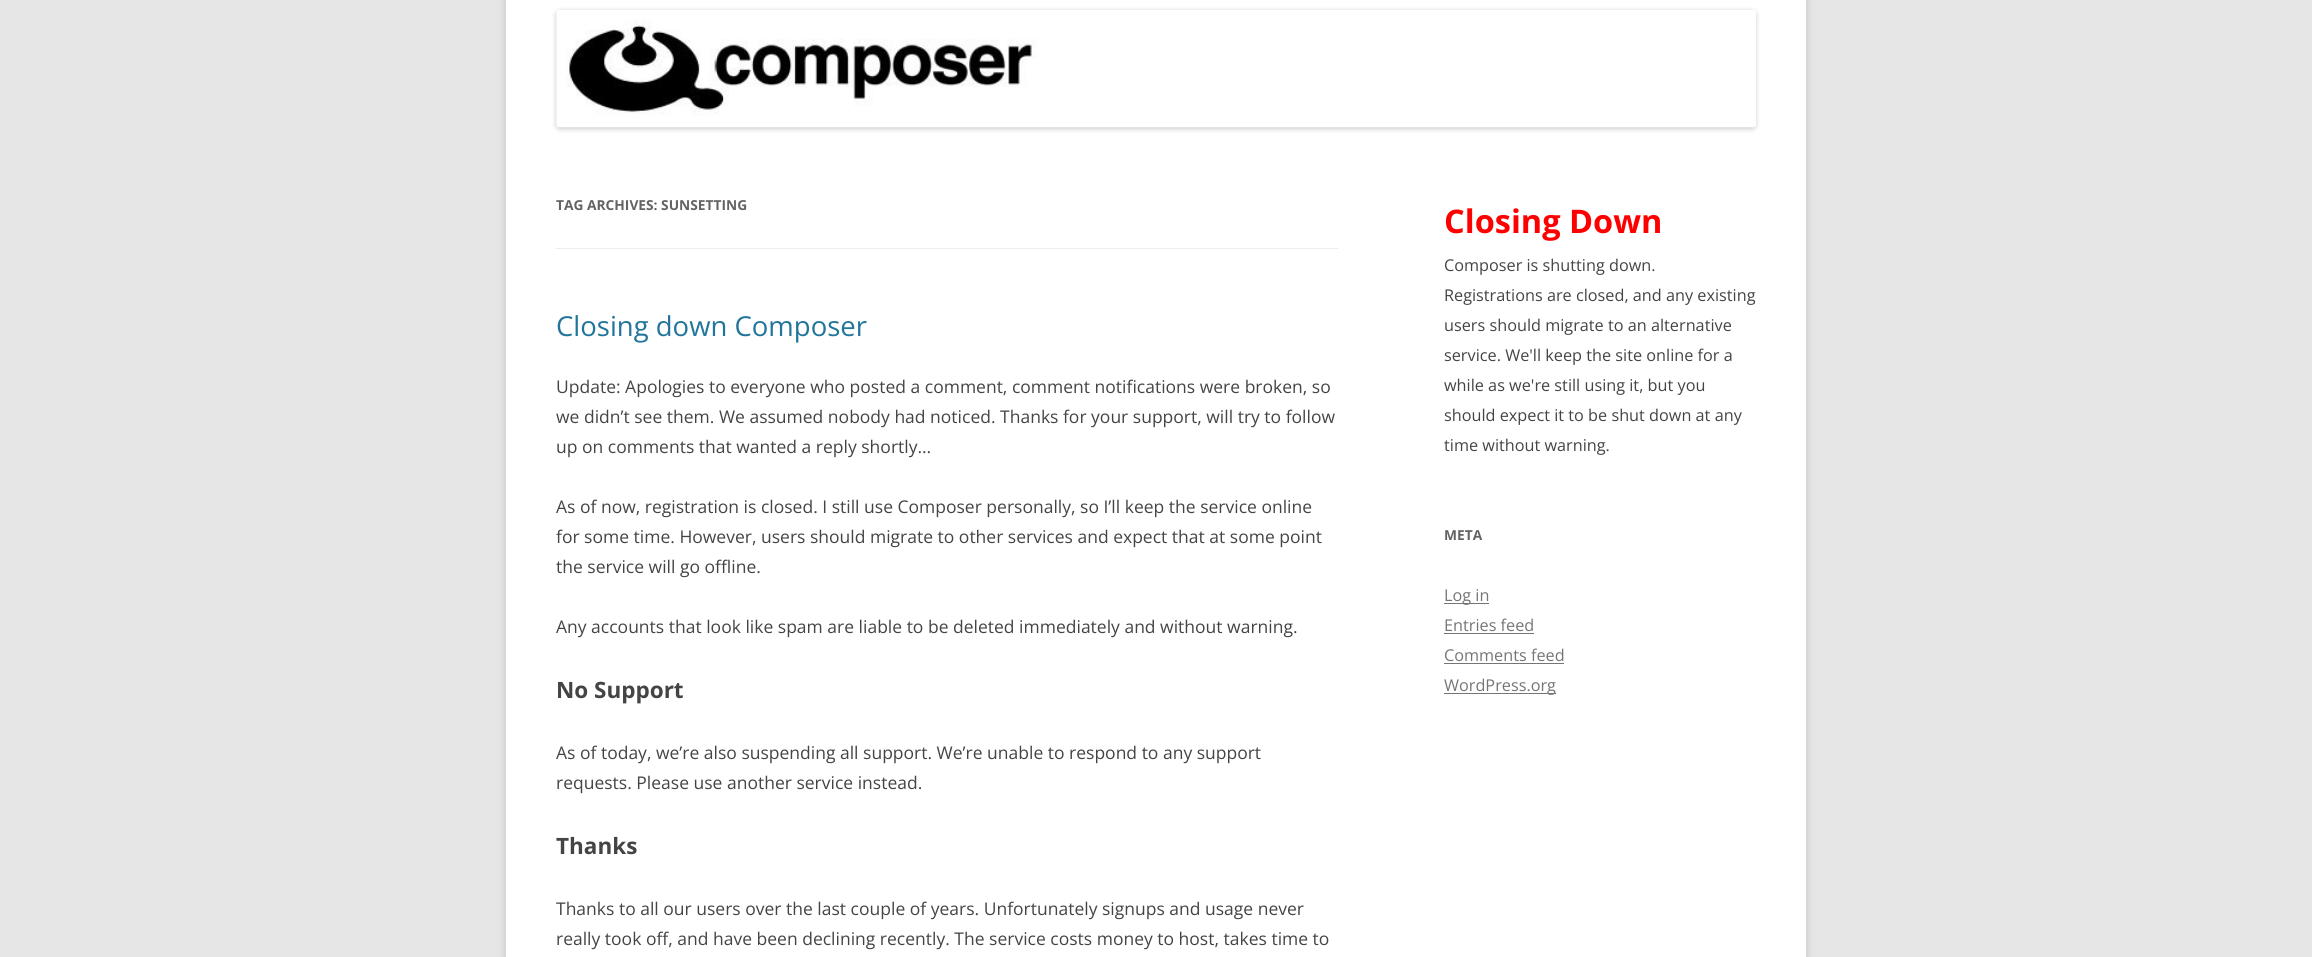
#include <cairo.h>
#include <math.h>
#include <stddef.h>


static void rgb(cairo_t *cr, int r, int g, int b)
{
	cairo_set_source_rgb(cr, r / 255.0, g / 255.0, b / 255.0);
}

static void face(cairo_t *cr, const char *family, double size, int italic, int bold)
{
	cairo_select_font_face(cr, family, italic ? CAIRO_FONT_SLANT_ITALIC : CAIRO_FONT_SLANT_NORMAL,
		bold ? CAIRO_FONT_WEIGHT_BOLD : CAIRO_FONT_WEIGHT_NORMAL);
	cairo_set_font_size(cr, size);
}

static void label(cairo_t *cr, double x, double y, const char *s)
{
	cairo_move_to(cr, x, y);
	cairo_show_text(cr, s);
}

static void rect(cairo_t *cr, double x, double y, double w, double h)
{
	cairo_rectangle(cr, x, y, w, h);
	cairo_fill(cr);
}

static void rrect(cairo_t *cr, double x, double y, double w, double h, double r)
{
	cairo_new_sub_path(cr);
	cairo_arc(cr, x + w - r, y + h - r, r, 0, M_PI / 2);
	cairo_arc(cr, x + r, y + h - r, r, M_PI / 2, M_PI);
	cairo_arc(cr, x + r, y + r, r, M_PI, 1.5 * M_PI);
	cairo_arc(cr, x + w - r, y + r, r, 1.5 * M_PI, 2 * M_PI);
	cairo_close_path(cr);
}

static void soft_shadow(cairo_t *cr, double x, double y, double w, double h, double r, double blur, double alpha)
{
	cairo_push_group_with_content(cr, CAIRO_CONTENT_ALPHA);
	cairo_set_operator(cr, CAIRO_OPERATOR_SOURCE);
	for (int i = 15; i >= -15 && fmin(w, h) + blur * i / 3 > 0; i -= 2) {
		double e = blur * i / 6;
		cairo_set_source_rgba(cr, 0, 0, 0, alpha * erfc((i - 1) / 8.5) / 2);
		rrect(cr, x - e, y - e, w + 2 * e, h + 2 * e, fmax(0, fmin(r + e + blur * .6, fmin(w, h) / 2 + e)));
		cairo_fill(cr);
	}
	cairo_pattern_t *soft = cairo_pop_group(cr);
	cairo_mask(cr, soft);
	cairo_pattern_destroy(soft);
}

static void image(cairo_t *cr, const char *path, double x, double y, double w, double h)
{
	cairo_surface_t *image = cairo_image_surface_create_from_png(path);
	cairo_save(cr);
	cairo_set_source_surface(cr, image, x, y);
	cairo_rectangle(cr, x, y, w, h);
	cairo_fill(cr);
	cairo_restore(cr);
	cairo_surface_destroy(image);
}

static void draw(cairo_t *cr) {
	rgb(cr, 230, 230, 230);
	cairo_paint(cr);
	rgb(cr, 100, 100, 100);
	soft_shadow(cr, 506, -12, 1300, 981, 0, 4, 0.3);
	rgb(cr, 255, 255, 255);
	rect(cr, 506, 0, 1300, 957);
	rgb(cr, 0, 0, 0);
	soft_shadow(cr, 556, 11, 1200, 118, 4, 2.5, 0.2);
	image(cr, "image0.png", 556, 10, 1200, 118);
	rgb(cr, 237, 237, 237);
	rect(cr, 556, 248, 782, 1);
	face(cr, "Open Sans", 13.75, 0, 1);
	rgb(cr, 99, 99, 99);
	label(cr, 556, 210, "TAG ARCHIVES: SUNSETTING");
	face(cr, "Open Sans", 27.5, 0, 0);
	rgb(cr, 33, 117, 155);
	label(cr, 556, 336, "Closing down Composer");
	face(cr, "Open Sans", 17.5, 0, 0);
	rgb(cr, 68, 68, 68);
	label(cr, 556, 393, "Update: Apologies to everyone who posted a comment, comment notifications were broken, so");
	label(cr, 556, 423, "we didn’t see them. We assumed nobody had noticed. Thanks for your support, will try to follow");
	label(cr, 556, 453, "up on comments that wanted a reply shortly…");
	label(cr, 556, 513, "As of now, registration is closed. I still use Composer personally, so I’ll keep the service online");
	label(cr, 556, 543, "for some time. However, users should migrate to other services and expect that at some point");
	label(cr, 556, 573, "the service will go offline.");
	label(cr, 556, 633, "Any accounts that look like spam are liable to be deleted immediately and without warning.");
	face(cr, "Open Sans", 22.5, 0, 1);
	label(cr, 556, 698, "No Support");
	face(cr, "Open Sans", 17.5, 0, 0);
	label(cr, 556, 759, "As of today, we’re also suspending all support. We’re unable to respond to any support");
	label(cr, 556, 789, "requests. Please use another service instead.");
	face(cr, "Open Sans", 22.5, 0, 1);
	label(cr, 556, 854, "Thanks");
	face(cr, "Open Sans", 17.5, 0, 0);
	label(cr, 556, 915, "Thanks to all our users over the last couple of years. Unfortunately signups and usage never");
	label(cr, 556, 945, "really took off, and have been declining recently. The service costs money to host, takes time to");
	face(cr, "Open Sans", 32.5, 0, 1);
	rgb(cr, 255, 0, 0);
	label(cr, 1444, 233, "Closing Down");
	face(cr, "Open Sans", 16.25, 0, 0);
	rgb(cr, 68, 68, 68);
	label(cr, 1444, 271, "Composer is shutting down.");
	label(cr, 1444, 301, "Registrations are closed, and any existing");
	label(cr, 1444, 331, "users should migrate to an alternative");
	label(cr, 1444, 361, "service. We'll keep the site online for a");
	label(cr, 1444, 391, "while as we're still using it, but you");
	label(cr, 1444, 421, "should expect it to be shut down at any");
	label(cr, 1444, 451, "time without warning.");
	face(cr, "Open Sans", 13.75, 0, 1);
	rgb(cr, 99, 99, 99);
	label(cr, 1444, 540, "META");
	rgb(cr, 117, 117, 117);
	rect(cr, 1444, 603, 45, 1);
	face(cr, "Open Sans", 16.25, 0, 0);
	label(cr, 1444, 601, "Log in");
	label(cr, 1444, 631, "Entries feed");
	rect(cr, 1444, 633, 90, 1);
	label(cr, 1444, 661, "Comments feed");
	rect(cr, 1444, 663, 120, 1);
	rect(cr, 1444, 693, 112, 1);
	label(cr, 1444, 691, "WordPress.org");
}

int main(void) {
	cairo_surface_t *surface = cairo_image_surface_create(CAIRO_FORMAT_RGB24, 2312, 957);
	cairo_t *cr = cairo_create(surface);
	cairo_font_options_t *options = cairo_font_options_create();
	cairo_font_options_set_hint_metrics(options, CAIRO_HINT_METRICS_OFF);
	cairo_font_options_set_hint_style(options, CAIRO_HINT_STYLE_NONE);
	cairo_set_font_options(cr, options);
	cairo_set_miter_limit(cr, 4);
	draw(cr);
	cairo_surface_write_to_png(surface, "render.png");
	cairo_font_options_destroy(options);
	cairo_destroy(cr);
	cairo_surface_destroy(surface);
	return 0;
}
